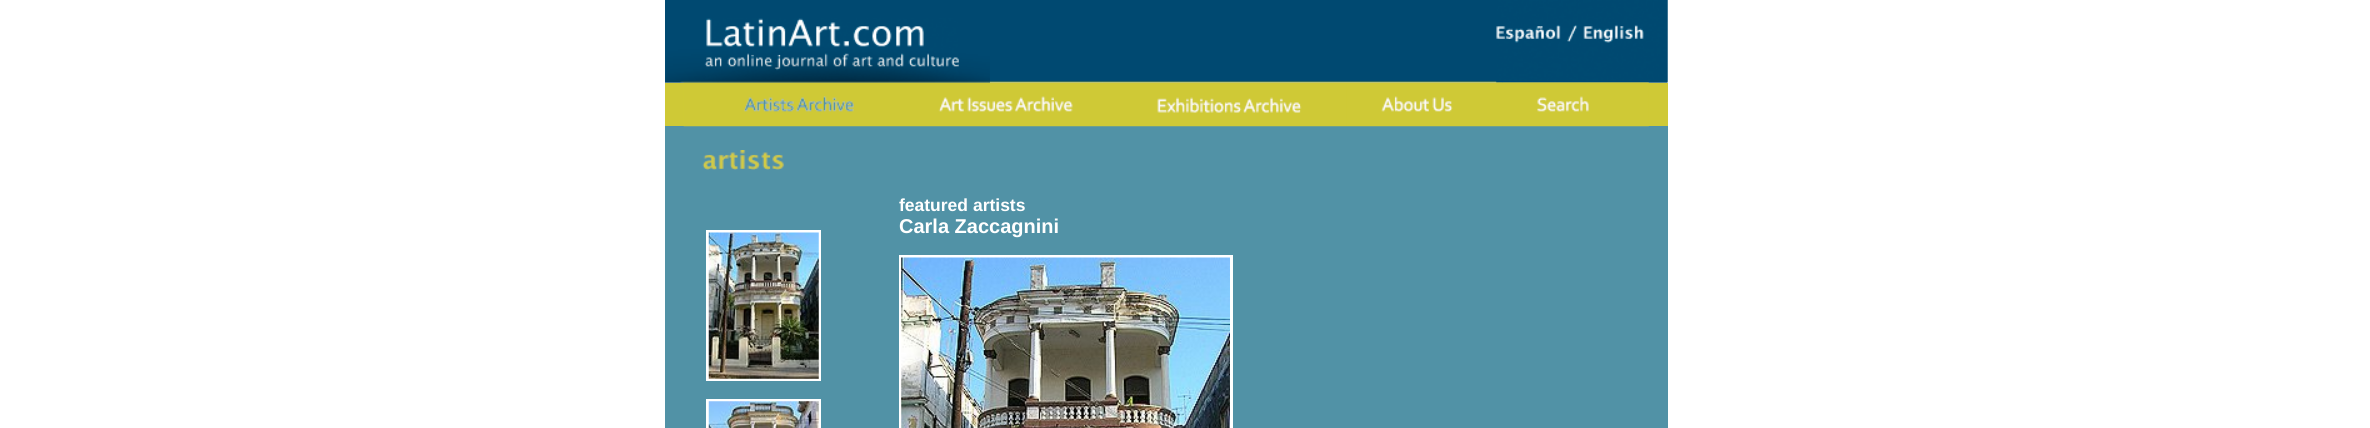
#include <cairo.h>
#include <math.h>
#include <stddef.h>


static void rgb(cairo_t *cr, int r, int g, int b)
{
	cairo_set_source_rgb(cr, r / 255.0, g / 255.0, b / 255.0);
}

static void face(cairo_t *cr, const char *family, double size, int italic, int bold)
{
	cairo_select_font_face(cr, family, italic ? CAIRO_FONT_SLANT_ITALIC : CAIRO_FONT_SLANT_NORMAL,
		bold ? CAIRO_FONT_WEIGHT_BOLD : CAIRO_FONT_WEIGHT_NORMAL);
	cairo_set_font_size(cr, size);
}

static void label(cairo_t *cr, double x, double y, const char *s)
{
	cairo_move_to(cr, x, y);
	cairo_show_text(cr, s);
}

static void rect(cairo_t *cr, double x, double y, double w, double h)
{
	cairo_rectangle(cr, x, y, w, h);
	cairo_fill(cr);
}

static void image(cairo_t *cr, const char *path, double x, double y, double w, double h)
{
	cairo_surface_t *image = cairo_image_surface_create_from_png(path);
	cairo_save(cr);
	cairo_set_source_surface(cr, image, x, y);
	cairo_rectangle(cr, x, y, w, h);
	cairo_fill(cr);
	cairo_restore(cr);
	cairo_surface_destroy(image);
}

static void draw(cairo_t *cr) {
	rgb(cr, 255, 255, 255);
	cairo_paint(cr);
	image(cr, "image0.png", 665, 0, 1003, 83);
	rgb(cr, 207, 201, 54);
	rect(cr, 665, 83, 1003, 43);
	rgb(cr, 81, 146, 166);
	rect(cr, 665, 126, 1003, 302);
	image(cr, "image3.png", 683, 82, 217, 45);
	image(cr, "image4.png", 900, 82, 203, 45);
	image(cr, "image1.png", 665, 18, 325, 65);
	image(cr, "image2.png", 1496, 0, 172, 83);
	image(cr, "image5.png", 1102, 82, 245, 45);
	image(cr, "image6.png", 1346, 82, 157, 45);
	image(cr, "image7.png", 1502, 82, 147, 45);
	image(cr, "image8.png", 702, 150, 82, 20);
	face(cr, "Liberation Sans", 17.5, 0, 1);
	rgb(cr, 255, 255, 255);
	label(cr, 899, 211, "featured artists");
	face(cr, "Liberation Sans", 20, 0, 1);
	label(cr, 899, 233, "Carla Zaccagnini");
	cairo_rectangle(cr, 900.5, 256.5, 331, 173);
	cairo_set_line_width(cr, 3);
	cairo_stroke(cr);
	image(cr, "image9.png", 901, 257, 329, 171);
	cairo_rectangle(cr, 707.5, 231.5, 112, 148);
	cairo_stroke(cr);
	image(cr, "image10.png", 708, 232, 111, 147);
	cairo_rectangle(cr, 707.5, 400.5, 112, 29);
	cairo_stroke(cr);
	image(cr, "image11.png", 708, 401, 111, 27);
}

int main(void) {
	cairo_surface_t *surface = cairo_image_surface_create(CAIRO_FORMAT_RGB24, 2370, 428);
	cairo_t *cr = cairo_create(surface);
	cairo_font_options_t *options = cairo_font_options_create();
	cairo_font_options_set_hint_metrics(options, CAIRO_HINT_METRICS_OFF);
	cairo_font_options_set_hint_style(options, CAIRO_HINT_STYLE_NONE);
	cairo_set_font_options(cr, options);
	cairo_set_miter_limit(cr, 4);
	draw(cr);
	cairo_surface_write_to_png(surface, "render.png");
	cairo_font_options_destroy(options);
	cairo_destroy(cr);
	cairo_surface_destroy(surface);
	return 0;
}
